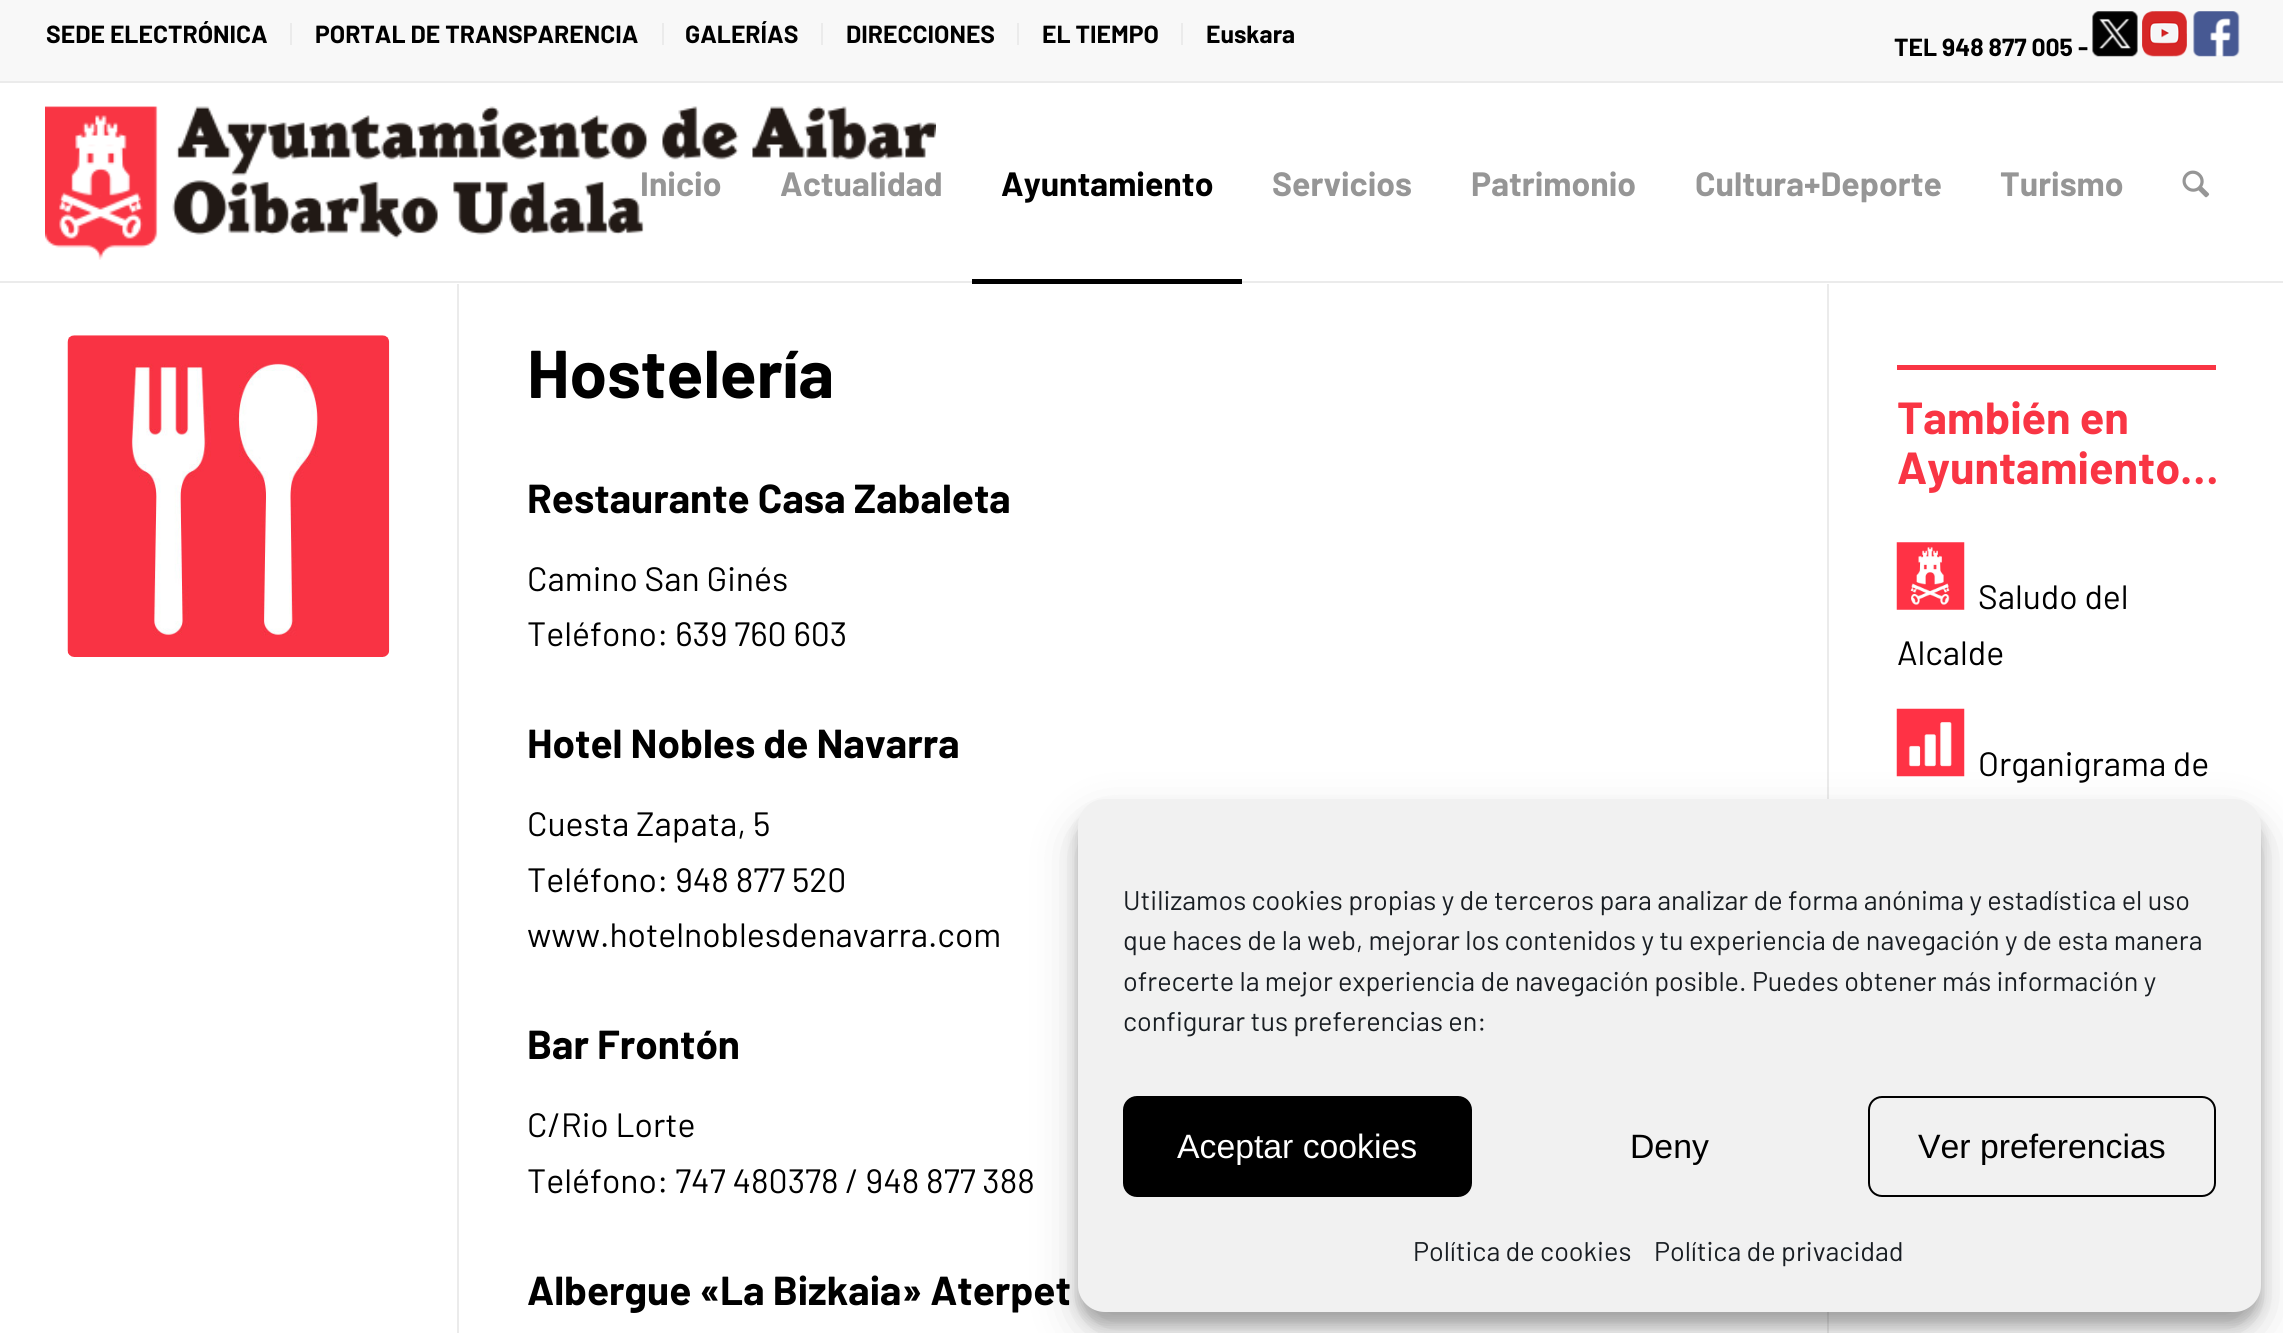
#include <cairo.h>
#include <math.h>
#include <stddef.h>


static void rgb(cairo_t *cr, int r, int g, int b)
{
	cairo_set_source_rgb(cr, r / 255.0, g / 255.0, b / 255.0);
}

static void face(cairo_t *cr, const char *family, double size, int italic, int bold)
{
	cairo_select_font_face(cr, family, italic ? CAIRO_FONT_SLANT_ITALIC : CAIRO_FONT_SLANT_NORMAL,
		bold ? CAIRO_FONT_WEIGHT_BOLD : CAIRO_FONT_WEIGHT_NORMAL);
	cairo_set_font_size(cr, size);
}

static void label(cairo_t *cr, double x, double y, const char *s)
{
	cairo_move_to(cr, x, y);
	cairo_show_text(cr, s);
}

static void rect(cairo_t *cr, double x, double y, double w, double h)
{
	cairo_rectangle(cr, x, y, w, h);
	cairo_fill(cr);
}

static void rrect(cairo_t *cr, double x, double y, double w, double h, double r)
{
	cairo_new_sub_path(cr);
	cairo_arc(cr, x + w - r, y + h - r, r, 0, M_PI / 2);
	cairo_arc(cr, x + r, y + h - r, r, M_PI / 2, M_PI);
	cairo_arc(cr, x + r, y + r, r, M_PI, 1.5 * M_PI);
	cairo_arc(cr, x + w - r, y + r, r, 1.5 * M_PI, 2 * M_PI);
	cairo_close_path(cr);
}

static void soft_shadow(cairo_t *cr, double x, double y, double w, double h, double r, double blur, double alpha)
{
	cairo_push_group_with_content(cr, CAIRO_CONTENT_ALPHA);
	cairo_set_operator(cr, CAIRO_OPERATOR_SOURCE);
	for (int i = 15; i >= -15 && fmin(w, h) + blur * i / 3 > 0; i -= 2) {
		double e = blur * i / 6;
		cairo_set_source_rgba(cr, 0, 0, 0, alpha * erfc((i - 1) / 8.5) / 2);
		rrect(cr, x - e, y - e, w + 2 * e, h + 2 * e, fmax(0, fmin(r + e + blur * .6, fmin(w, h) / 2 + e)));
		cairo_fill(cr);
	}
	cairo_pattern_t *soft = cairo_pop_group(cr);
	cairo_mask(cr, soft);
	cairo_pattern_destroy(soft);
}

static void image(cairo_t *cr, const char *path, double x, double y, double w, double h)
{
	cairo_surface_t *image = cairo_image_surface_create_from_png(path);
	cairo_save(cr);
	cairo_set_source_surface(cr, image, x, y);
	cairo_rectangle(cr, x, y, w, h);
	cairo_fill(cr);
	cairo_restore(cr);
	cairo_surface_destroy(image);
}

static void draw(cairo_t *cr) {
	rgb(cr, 255, 255, 255);
	cairo_paint(cr);
	rgb(cr, 248, 248, 248);
	rect(cr, 0, 0, 2283, 81);
	rgb(cr, 235, 235, 235);
	rect(cr, 0, 81, 2283, 2);
	rect(cr, 290, 23, 2, 22);
	face(cr, "Barlow", 24.75, 0, 1);
	rgb(cr, 0, 0, 0);
	label(cr, 46, 43, "SEDE ELECTRÓNICA");
	rgb(cr, 235, 235, 235);
	rect(cr, 662, 23, 2, 22);
	rgb(cr, 0, 0, 0);
	label(cr, 315, 43, "PORTAL DE TRANSPARENCIA");
	rgb(cr, 235, 235, 235);
	rect(cr, 821, 23, 2, 22);
	rgb(cr, 0, 0, 0);
	label(cr, 685, 43, "GALERÍAS");
	rgb(cr, 235, 235, 235);
	rect(cr, 1017, 23, 2, 22);
	rgb(cr, 0, 0, 0);
	label(cr, 846, 43, "DIRECCIONES");
	rgb(cr, 235, 235, 235);
	rect(cr, 1181, 23, 2, 22);
	rgb(cr, 0, 0, 0);
	label(cr, 1042, 43, "EL TIEMPO");
	label(cr, 1206, 43, "Euskara");
	label(cr, 1894, 56, "TEL 948 877 005 -");
	image(cr, "image0.png", 2092, 11, 46, 46);
	image(cr, "image1.png", 2142, 11, 45, 46);
	image(cr, "image2.png", 2193, 11, 47, 46);
	rgb(cr, 235, 235, 235);
	rect(cr, 0, 281, 2283, 2);
	image(cr, "image3.png", 45, 106, 891, 154);
	face(cr, "Barlow", 33.75, 0, 1);
	rgb(cr, 150, 150, 150);
	label(cr, 640, 196, "Inicio");
	label(cr, 780, 196, "Actualidad");
	rgb(cr, 0, 0, 0);
	label(cr, 1001, 196, "Ayuntamiento");
	rect(cr, 972, 279, 270, 5);
	rgb(cr, 150, 150, 150);
	label(cr, 1272, 196, "Servicios");
	label(cr, 1471, 196, "Patrimonio");
	label(cr, 1695, 196, "Cultura+Deporte");
	label(cr, 2000, 196, "Turismo");
	image(cr, "image4.png", 2182, 170, 28, 28);
	image(cr, "image5.png", 67, 335, 323, 322);
	rgb(cr, 235, 235, 235);
	rect(cr, 457, 284, 2, 1049);
	face(cr, "Barlow", 67.5, 0, 1);
	rgb(cr, 0, 0, 0);
	label(cr, 527, 398, "Hostelería");
	face(cr, "Barlow", 40.5, 0, 1);
	label(cr, 527, 513, "Restaurante Casa Zabaleta");
	face(cr, "Barlow", 33.75, 0, 0);
	label(cr, 527, 591, "Camino San Ginés");
	label(cr, 527, 646, "Teléfono: 639 760 603");
	face(cr, "Barlow", 40.5, 0, 1);
	label(cr, 527, 758, "Hotel Nobles de Navarra");
	face(cr, "Barlow", 33.75, 0, 0);
	label(cr, 527, 836, "Cuesta Zapata, 5");
	label(cr, 527, 892, "Teléfono: 948 877 520");
	label(cr, 527, 947, "www.hotelnoblesdenavarra.com");
	face(cr, "Barlow", 40.5, 0, 1);
	label(cr, 527, 1059, "Bar Frontón");
	face(cr, "Barlow", 33.75, 0, 0);
	label(cr, 527, 1137, "C/Rio Lorte");
	label(cr, 527, 1193, "Teléfono: 747 480378 / 948 877 388");
	face(cr, "Barlow", 40.5, 0, 1);
	label(cr, 527, 1305, "Albergue «La Bizkaia» Aterpet");
	rgb(cr, 235, 235, 235);
	rect(cr, 1827, 284, 2, 1049);
	rgb(cr, 249, 53, 68);
	rect(cr, 1897, 365, 319, 5);
	face(cr, "Barlow", 45, 0, 1);
	label(cr, 1897, 434, "También en");
	label(cr, 1897, 484, "Ayuntamiento…");
	image(cr, "image6.png", 1896, 542, 69, 68);
	face(cr, "Barlow", 33.75, 0, 0);
	rgb(cr, 0, 0, 0);
	label(cr, 1978, 609, "Saludo del");
	label(cr, 1897, 665, "Alcalde");
	image(cr, "image7.png", 1896, 708, 69, 69);
	label(cr, 1978, 776, "Organigrama de");
	rgb(cr, 0, 0, 0);
	soft_shadow(cr, 1078, 812, 1183, 513, 27, 7, 0.23);
	soft_shadow(cr, 1078, 821, 1183, 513, 27, 22.5, 0.19);
	rgb(cr, 241, 241, 241);
	rrect(cr, 1078, 799, 1183, 513, 27);
	cairo_fill(cr);
	face(cr, "Barlow", 27, 0, 0);
	rgb(cr, 25, 30, 35);
	label(cr, 1123, 910, "Utilizamos cookies propias y de terceros para analizar de forma anónima y estadística el uso");
	label(cr, 1123, 950, "que haces de la web, mejorar los contenidos y tu experiencia de navegación y de esta manera");
	label(cr, 1123, 991, "ofrecerte la mejor experiencia de navegación posible. Puedes obtener más información y");
	label(cr, 1123, 1031, "configurar tus preferencias en:");
	rgb(cr, 0, 0, 0);
	rrect(cr, 1124, 1097, 347, 99, 13);
	cairo_fill_preserve(cr);
	cairo_stroke(cr);
	face(cr, "Liberation Sans", 33.75, 0, 0);
	rgb(cr, 255, 255, 255);
	label(cr, 1177, 1158, "Aceptar cookies");
	rgb(cr, 0, 0, 0);
	label(cr, 1630, 1158, "Deny");
	rrect(cr, 1869, 1097, 346, 99, 13);
	cairo_stroke(cr);
	label(cr, 1918, 1158, "Ver preferencias");
	face(cr, "Barlow", 27, 0, 0);
	rgb(cr, 25, 30, 35);
	label(cr, 1413, 1261, "Política de cookies");
	label(cr, 1654, 1261, "Política de privacidad");
}

int main(void) {
	cairo_surface_t *surface = cairo_image_surface_create(CAIRO_FORMAT_RGB24, 2283, 1333);
	cairo_t *cr = cairo_create(surface);
	cairo_font_options_t *options = cairo_font_options_create();
	cairo_font_options_set_hint_metrics(options, CAIRO_HINT_METRICS_OFF);
	cairo_font_options_set_hint_style(options, CAIRO_HINT_STYLE_NONE);
	cairo_set_font_options(cr, options);
	cairo_set_miter_limit(cr, 4);
	draw(cr);
	cairo_surface_write_to_png(surface, "render.png");
	cairo_font_options_destroy(options);
	cairo_destroy(cr);
	cairo_surface_destroy(surface);
	return 0;
}
